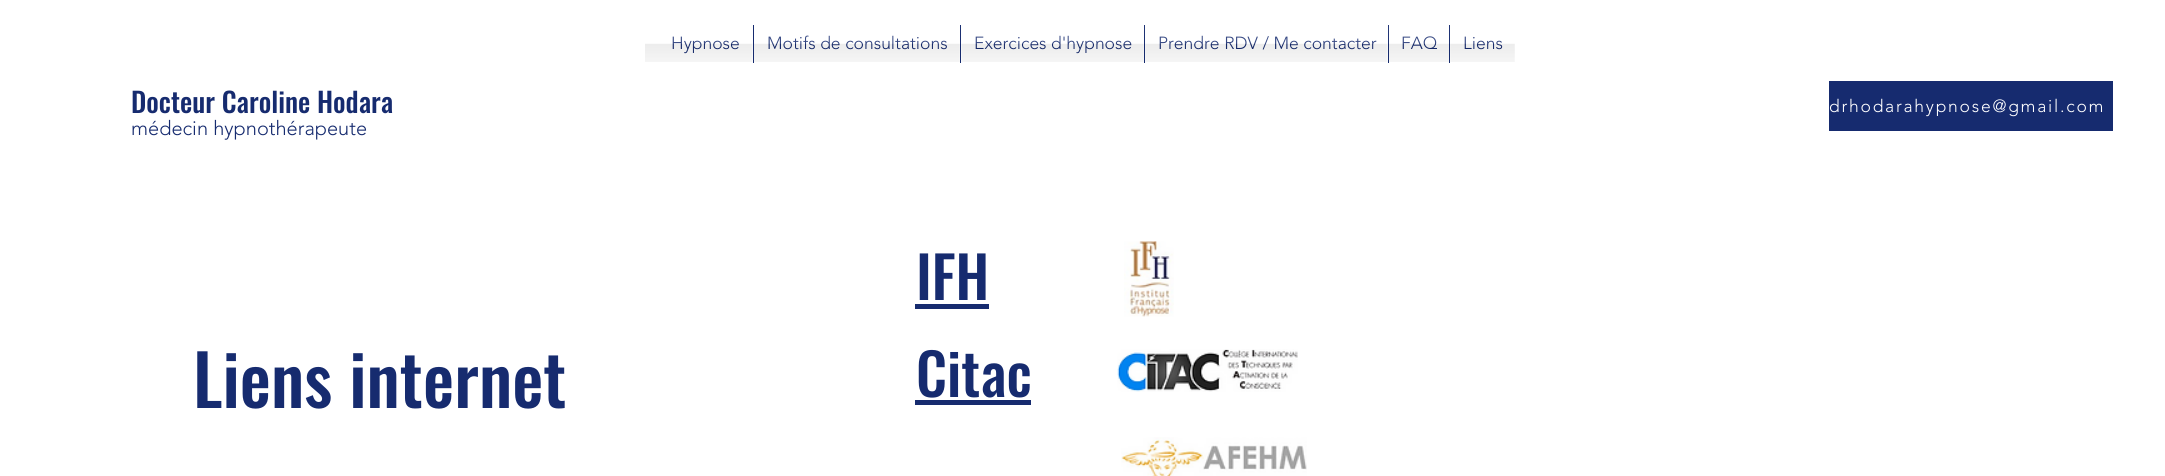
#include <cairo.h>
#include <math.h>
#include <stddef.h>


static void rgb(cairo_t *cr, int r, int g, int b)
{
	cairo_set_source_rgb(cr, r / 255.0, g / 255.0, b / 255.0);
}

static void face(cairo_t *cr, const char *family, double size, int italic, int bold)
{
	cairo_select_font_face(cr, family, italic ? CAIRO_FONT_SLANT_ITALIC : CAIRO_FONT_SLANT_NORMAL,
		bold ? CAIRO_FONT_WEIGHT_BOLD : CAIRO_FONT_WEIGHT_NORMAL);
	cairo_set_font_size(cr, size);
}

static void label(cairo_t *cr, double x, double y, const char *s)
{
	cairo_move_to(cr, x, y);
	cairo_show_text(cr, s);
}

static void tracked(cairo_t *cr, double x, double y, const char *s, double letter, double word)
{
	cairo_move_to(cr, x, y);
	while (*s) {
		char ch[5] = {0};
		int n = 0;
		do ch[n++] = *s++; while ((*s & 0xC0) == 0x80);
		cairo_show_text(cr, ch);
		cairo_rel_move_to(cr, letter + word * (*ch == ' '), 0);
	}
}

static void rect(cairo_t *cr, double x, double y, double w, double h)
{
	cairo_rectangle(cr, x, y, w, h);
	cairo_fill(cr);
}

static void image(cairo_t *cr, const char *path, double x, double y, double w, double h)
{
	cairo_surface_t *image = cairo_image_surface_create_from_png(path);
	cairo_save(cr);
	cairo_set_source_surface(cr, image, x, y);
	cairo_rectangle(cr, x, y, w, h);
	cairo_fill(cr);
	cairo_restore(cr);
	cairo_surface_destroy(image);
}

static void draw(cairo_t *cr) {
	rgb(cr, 255, 255, 255);
	cairo_paint(cr);
	image(cr, "image0.png", 645, 43, 14, 19);
	face(cr, "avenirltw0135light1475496 Light", 17.5, 0, 0);
	rgb(cr, 22, 43, 111);
	label(cr, 671, 49, "Hypnose");
	image(cr, "image1.png", 659, 36, 94, 26);
	rect(cr, 753, 25, 1, 38);
	label(cr, 767, 49, "Motifs de consultations");
	image(cr, "image2.png", 754, 35, 206, 27);
	rect(cr, 960, 25, 1, 38);
	label(cr, 974, 49, "Exercices d'hypnose");
	image(cr, "image3.png", 960, 25, 184, 37);
	rect(cr, 1144, 25, 1, 38);
	label(cr, 1158, 49, "Prendre RDV / Me contacter");
	image(cr, "image4.png", 1144, 25, 244, 37);
	rect(cr, 1388, 25, 1, 38);
	label(cr, 1401, 49, "FAQ");
	image(cr, "image5.png", 1388, 25, 61, 37);
	rect(cr, 1449, 25, 1, 38);
	label(cr, 1463, 49, "Liens");
	image(cr, "image6.png", 1449, 25, 66, 37);
	face(cr, "Oswald Medium", 27.5, 0, 0);
	label(cr, 131, 113, "Docteur Caroline Hodara");
	face(cr, "avenirltw0135light1475496 Light", 20, 0, 0);
	label(cr, 131, 135, "médecin hypnothérapeute");
	rect(cr, 1829, 81, 284, 50);
	face(cr, "avenirltw0135light1475496 Light", 17.5, 0, 0);
	rgb(cr, 255, 255, 255);
	tracked(cr, 1829, 112, "drhodarahypnose@gmail.com", 1.75, 0);
	face(cr, "Oswald Medium", 70, 0, 0);
	rgb(cr, 22, 43, 111);
	label(cr, 193, 408, "Liens internet");
	face(cr, "Oswald Medium", 57.5, 0, 0);
	label(cr, 916, 300, "IFH");
	rect(cr, 915, 304, 74, 5);
	image(cr, "image7.png", 1124, 241, 50, 76);
	label(cr, 916, 397, "Citac");
	rect(cr, 915, 400, 116, 5);
	image(cr, "image8.png", 1117, 349, 181, 43);
	image(cr, "image9.png", 1121, 437, 186, 39);
}

int main(void) {
	cairo_surface_t *surface = cairo_image_surface_create(CAIRO_FORMAT_RGB24, 2165, 476);
	cairo_t *cr = cairo_create(surface);
	cairo_font_options_t *options = cairo_font_options_create();
	cairo_font_options_set_hint_metrics(options, CAIRO_HINT_METRICS_OFF);
	cairo_font_options_set_hint_style(options, CAIRO_HINT_STYLE_NONE);
	cairo_set_font_options(cr, options);
	cairo_set_miter_limit(cr, 4);
	draw(cr);
	cairo_surface_write_to_png(surface, "render.png");
	cairo_font_options_destroy(options);
	cairo_destroy(cr);
	cairo_surface_destroy(surface);
	return 0;
}
